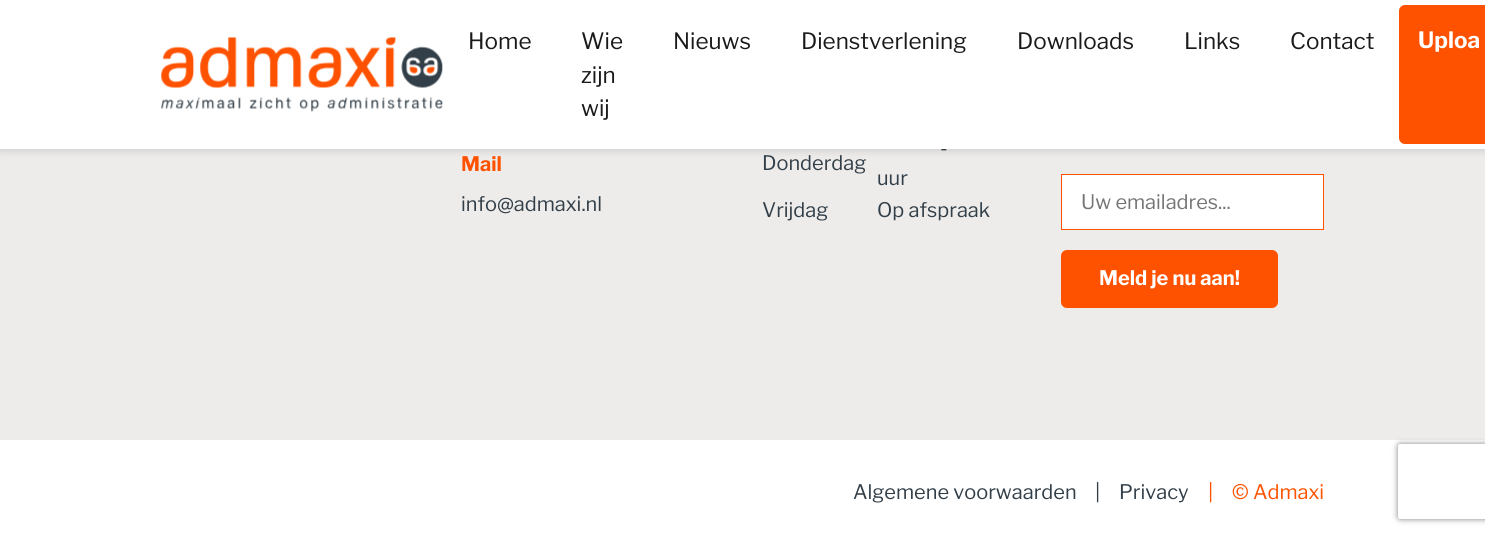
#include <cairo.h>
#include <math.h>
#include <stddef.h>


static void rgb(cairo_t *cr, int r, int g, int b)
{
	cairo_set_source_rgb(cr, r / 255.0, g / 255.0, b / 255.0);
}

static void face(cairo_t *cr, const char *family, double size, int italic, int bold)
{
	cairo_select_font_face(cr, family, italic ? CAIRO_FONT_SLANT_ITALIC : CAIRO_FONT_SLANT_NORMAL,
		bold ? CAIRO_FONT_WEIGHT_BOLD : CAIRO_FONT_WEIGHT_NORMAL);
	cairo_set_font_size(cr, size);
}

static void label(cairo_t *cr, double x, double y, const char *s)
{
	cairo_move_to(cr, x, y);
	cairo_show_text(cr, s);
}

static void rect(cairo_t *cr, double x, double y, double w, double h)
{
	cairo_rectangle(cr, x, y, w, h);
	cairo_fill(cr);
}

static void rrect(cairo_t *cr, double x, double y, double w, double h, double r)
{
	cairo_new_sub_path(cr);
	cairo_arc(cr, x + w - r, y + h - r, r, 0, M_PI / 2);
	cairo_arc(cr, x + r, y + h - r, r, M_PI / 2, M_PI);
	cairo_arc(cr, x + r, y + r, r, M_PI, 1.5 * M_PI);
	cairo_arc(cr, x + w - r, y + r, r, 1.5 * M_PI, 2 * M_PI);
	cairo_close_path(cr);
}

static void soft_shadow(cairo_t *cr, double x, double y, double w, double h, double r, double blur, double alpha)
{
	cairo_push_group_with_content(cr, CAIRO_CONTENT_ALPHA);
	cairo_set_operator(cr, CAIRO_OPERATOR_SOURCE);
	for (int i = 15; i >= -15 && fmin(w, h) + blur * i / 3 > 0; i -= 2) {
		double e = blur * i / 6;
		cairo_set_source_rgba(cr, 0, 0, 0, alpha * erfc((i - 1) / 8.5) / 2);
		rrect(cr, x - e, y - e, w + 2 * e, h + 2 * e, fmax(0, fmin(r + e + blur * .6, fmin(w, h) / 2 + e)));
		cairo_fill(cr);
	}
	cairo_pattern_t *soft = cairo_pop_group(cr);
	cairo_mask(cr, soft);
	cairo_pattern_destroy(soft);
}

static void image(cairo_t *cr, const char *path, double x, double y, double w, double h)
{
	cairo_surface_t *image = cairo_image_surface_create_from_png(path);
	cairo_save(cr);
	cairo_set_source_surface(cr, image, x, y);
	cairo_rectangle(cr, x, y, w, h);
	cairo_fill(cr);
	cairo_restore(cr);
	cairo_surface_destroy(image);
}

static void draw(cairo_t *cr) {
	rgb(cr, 237, 236, 235);
	cairo_paint(cr);
	rgb(cr, 0, 0, 0);
	soft_shadow(cr, -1, -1, 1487, 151, 0, 4.5, 0.15);
	rgb(cr, 255, 255, 255);
	rect(cr, 0, 0, 1485, 149);
	image(cr, "image0.png", 161, 37, 282, 75);
	face(cr, "Libre Franklin", 22.5, 0, 0);
	rgb(cr, 26, 26, 26);
	label(cr, 468, 49, "Home");
	label(cr, 581, 49, "Wie");
	label(cr, 581, 83, "zijn");
	label(cr, 581, 116, "wij");
	label(cr, 673, 49, "Nieuws");
	label(cr, 801, 49, "Dienstverlening");
	label(cr, 1017, 49, "Downloads");
	label(cr, 1184, 49, "Links");
	label(cr, 1290, 49, "Contact");
	rgb(cr, 255, 82, 0);
	rrect(cr, 1399, 5, 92, 139, 6);
	cairo_fill(cr);
	face(cr, "Libre Franklin", 22.5, 0, 1);
	rgb(cr, 255, 255, 255);
	label(cr, 1418, 48, "Uploa");
	face(cr, "Libre Franklin", 20, 0, 1);
	rgb(cr, 255, 82, 0);
	label(cr, 461, 171, "Mail");
	face(cr, "Libre Franklin", 20, 0, 0);
	rgb(cr, 51, 63, 72);
	label(cr, 461, 211, "info@admaxi.nl");
	label(cr, 762, 170, "Donderdag");
	label(cr, 940, 155, "-");
	label(cr, 877, 185, "uur");
	label(cr, 762, 217, "Vrijdag");
	label(cr, 877, 217, "Op afspraak");
	rgb(cr, 255, 255, 255);
	cairo_rectangle(cr, 1061.5, 174.5, 262, 55);
	cairo_fill_preserve(cr);
	rgb(cr, 255, 82, 0);
	cairo_set_line_width(cr, 1);
	cairo_stroke(cr);
	rgb(cr, 117, 117, 117);
	label(cr, 1081, 209, "Uw emailadres...");
	rgb(cr, 255, 82, 0);
	rrect(cr, 1061, 250, 217, 58, 6);
	cairo_fill(cr);
	face(cr, "Libre Franklin", 20, 0, 1);
	rgb(cr, 255, 255, 255);
	label(cr, 1099, 285, "Meld je nu aan!");
	rect(cr, 0, 440, 1485, 96);
	face(cr, "Libre Franklin", 20, 0, 0);
	rgb(cr, 51, 63, 72);
	label(cr, 853, 499, "Algemene voorwaarden");
	label(cr, 1095, 499, "|");
	label(cr, 1119, 499, "Privacy");
	rgb(cr, 255, 82, 0);
	label(cr, 1208, 499, "|");
	label(cr, 1232, 499, "© Admaxi");
	cairo_save(cr);
	cairo_set_fill_rule(cr, CAIRO_FILL_RULE_EVEN_ODD);
	cairo_new_path(cr);
	cairo_move_to(cr, 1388, 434);
	cairo_line_to(cr, 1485, 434);
	cairo_line_to(cr, 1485, 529);
	cairo_line_to(cr, 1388, 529);
	cairo_close_path(cr);
	cairo_move_to(cr, 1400.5, 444);
	cairo_line_to(cr, 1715.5, 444);
	cairo_curve_to(cr, 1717, 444, 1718, 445, 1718, 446.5);
	cairo_line_to(cr, 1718, 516.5);
	cairo_curve_to(cr, 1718, 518, 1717, 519, 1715.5, 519);
	cairo_line_to(cr, 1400.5, 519);
	cairo_curve_to(cr, 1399, 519, 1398, 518, 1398, 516.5);
	cairo_line_to(cr, 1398, 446.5);
	cairo_curve_to(cr, 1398, 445, 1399, 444, 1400.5, 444);
	cairo_close_path(cr);
	cairo_clip(cr);
	rgb(cr, 128, 128, 128);
	soft_shadow(cr, 1398, 444, 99, 75, 2.5, 3, 1);
	cairo_restore(cr);
}

int main(void) {
	cairo_surface_t *surface = cairo_image_surface_create(CAIRO_FORMAT_RGB24, 1485, 536);
	cairo_t *cr = cairo_create(surface);
	cairo_font_options_t *options = cairo_font_options_create();
	cairo_font_options_set_hint_metrics(options, CAIRO_HINT_METRICS_OFF);
	cairo_font_options_set_hint_style(options, CAIRO_HINT_STYLE_NONE);
	cairo_set_font_options(cr, options);
	cairo_set_miter_limit(cr, 4);
	draw(cr);
	cairo_surface_write_to_png(surface, "render.png");
	cairo_font_options_destroy(options);
	cairo_destroy(cr);
	cairo_surface_destroy(surface);
	return 0;
}
